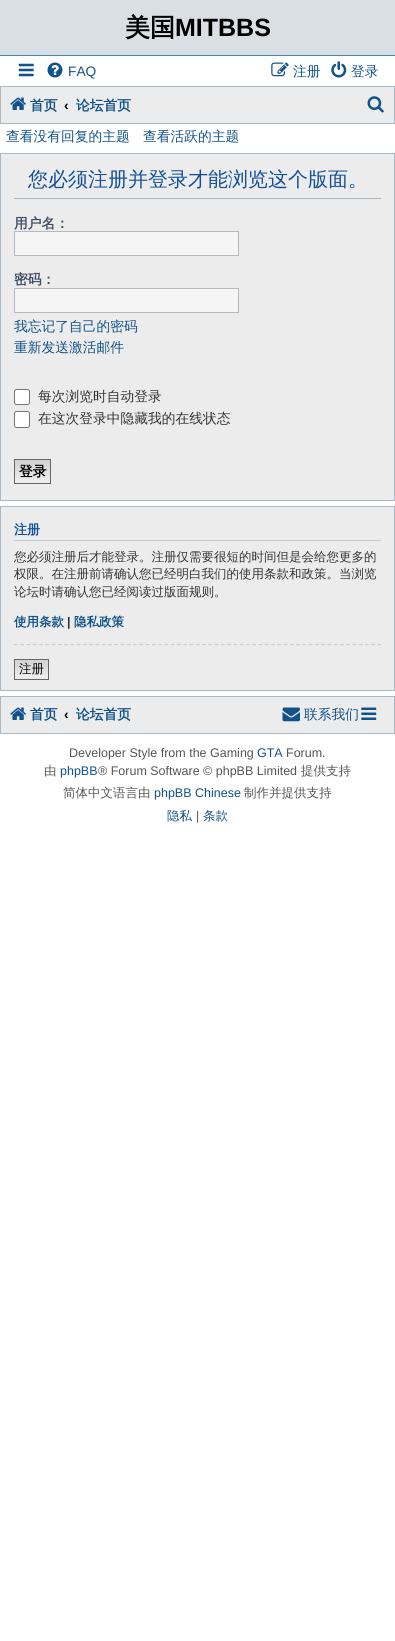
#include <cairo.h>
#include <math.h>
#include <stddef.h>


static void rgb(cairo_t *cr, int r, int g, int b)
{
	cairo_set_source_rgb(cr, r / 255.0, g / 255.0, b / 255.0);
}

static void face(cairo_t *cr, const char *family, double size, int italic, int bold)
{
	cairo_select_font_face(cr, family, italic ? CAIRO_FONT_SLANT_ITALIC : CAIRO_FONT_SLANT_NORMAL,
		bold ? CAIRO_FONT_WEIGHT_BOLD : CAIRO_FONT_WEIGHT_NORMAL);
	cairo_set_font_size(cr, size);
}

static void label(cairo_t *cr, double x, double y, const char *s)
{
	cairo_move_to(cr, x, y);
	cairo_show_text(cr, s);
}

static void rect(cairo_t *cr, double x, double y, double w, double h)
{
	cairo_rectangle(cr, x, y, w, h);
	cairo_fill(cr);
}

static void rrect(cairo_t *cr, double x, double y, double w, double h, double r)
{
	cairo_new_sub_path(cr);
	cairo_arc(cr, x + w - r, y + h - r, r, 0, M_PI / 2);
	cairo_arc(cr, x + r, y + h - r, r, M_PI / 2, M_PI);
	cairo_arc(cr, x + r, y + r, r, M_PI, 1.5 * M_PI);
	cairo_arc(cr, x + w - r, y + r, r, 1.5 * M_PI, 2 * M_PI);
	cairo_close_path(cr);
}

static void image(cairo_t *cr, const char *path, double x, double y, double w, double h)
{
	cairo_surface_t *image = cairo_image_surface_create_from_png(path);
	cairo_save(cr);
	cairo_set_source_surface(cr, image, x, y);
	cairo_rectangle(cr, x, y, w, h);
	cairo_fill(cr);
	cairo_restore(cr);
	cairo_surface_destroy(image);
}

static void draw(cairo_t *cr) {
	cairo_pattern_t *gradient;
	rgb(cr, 255, 255, 255);
	cairo_paint(cr);
	rgb(cr, 217, 223, 228);
	rect(cr, 0, 0, 395, 55);
	rgb(cr, 71, 135, 167);
	rect(cr, 0, 55, 395, 1);
	face(cr, "WenQuanYi Zen Hei", 25, 0, 1);
	rgb(cr, 0, 0, 0);
	label(cr, 125, 36, "美国");
	face(cr, "Liberation Sans", 25, 0, 1);
	label(cr, 175, 36, "MITBBS");
	image(cr, "image0.png", 18, 63, 16, 14);
	image(cr, "image1.png", 47, 62, 16, 16);
	face(cr, "Liberation Sans", 13.75, 0, 0);
	rgb(cr, 16, 82, 137);
	label(cr, 68, 76, "FAQ");
	image(cr, "image2.png", 271, 62, 18, 15);
	face(cr, "WenQuanYi Zen Hei Medium", 13.75, 0, 0);
	label(cr, 293, 76, "注册");
	image(cr, "image3.png", 331, 61, 16, 17);
	label(cr, 351, 76, "登录");
	rgb(cr, 236, 236, 236);
	cairo_rectangle(cr, 0.5, 86.5, 394, 37);
	cairo_fill_preserve(cr);
	rgb(cr, 169, 184, 194);
	cairo_set_line_width(cr, 1);
	cairo_stroke(cr);
	image(cr, "image4.png", 10, 97, 16, 13);
	face(cr, "WenQuanYi Zen Hei", 13.75, 0, 1);
	rgb(cr, 16, 82, 137);
	label(cr, 30, 110, "首页");
	face(cr, "Liberation Sans", 13.75, 0, 1);
	rgb(cr, 0, 0, 0);
	label(cr, 64, 110, "‹");
	face(cr, "WenQuanYi Zen Hei", 13.75, 0, 1);
	rgb(cr, 16, 82, 137);
	label(cr, 76, 110, "论坛首页");
	image(cr, "image5.png", 367, 96, 17, 17);
	face(cr, "WenQuanYi Zen Hei Medium", 13.75, 0, 0);
	label(cr, 6, 141, "查看没有回复的主题");
	label(cr, 143, 141, "查看活跃的主题");
	rgb(cr, 236, 236, 236);
	cairo_rectangle(cr, 0.5, 153.5, 394, 347);
	cairo_fill_preserve(cr);
	rgb(cr, 169, 184, 194);
	cairo_stroke(cr);
	rect(cr, 14, 198, 367, 1);
	face(cr, "WenQuanYi Zen Hei Medium", 20, 0, 0);
	rgb(cr, 17, 80, 152);
	label(cr, 28, 186, "您必须注册并登录才能浏览这个版面。");
	face(cr, "WenQuanYi Zen Hei", 13.75, 0, 1);
	rgb(cr, 66, 80, 103);
	label(cr, 14, 228, "用户名：");
	rgb(cr, 245, 245, 245);
	cairo_rectangle(cr, 14.5, 231.5, 224, 24);
	cairo_fill_preserve(cr);
	rgb(cr, 180, 186, 192);
	cairo_stroke(cr);
	rgb(cr, 66, 80, 103);
	label(cr, 14, 284, "密码：");
	rgb(cr, 245, 245, 245);
	cairo_rectangle(cr, 14.5, 288.5, 224, 24);
	cairo_fill_preserve(cr);
	rgb(cr, 180, 186, 192);
	cairo_stroke(cr);
	face(cr, "WenQuanYi Zen Hei Medium", 13.75, 0, 0);
	rgb(cr, 16, 82, 137);
	label(cr, 14, 331, "我忘记了自己的密码");
	label(cr, 14, 352, "重新发送激活邮件");
	rgb(cr, 255, 255, 255);
	rrect(cr, 14.5, 389.5, 15, 15, 2);
	cairo_fill_preserve(cr);
	rgb(cr, 118, 118, 118);
	cairo_stroke(cr);
	rgb(cr, 51, 51, 51);
	label(cr, 38, 401, "每次浏览时自动登录");
	rgb(cr, 255, 255, 255);
	rrect(cr, 14.5, 411.5, 15, 16, 2);
	cairo_fill_preserve(cr);
	rgb(cr, 118, 118, 118);
	cairo_stroke(cr);
	rgb(cr, 51, 51, 51);
	label(cr, 38, 423, "在这次登录中隐藏我的在线状态");
	gradient = cairo_pattern_create_linear(33, 460, 33, 483);
	cairo_pattern_add_color_stop_rgba(gradient, 0, 0.824, 0.824, 0.824, 1);
	cairo_pattern_add_color_stop_rgba(gradient, 1, 0.937, 0.937, 0.937, 1);
	cairo_set_source(cr, gradient);
	cairo_pattern_destroy(gradient);
	rect(cr, 15, 460, 35, 19);
	cairo_rectangle(cr, 14.5, 459.5, 36, 24);
	rgb(cr, 102, 102, 102);
	cairo_stroke(cr);
	face(cr, "WenQuanYi Zen Hei", 13.75, 0, 1);
	rgb(cr, 0, 0, 0);
	label(cr, 19, 476, "登录");
	rgb(cr, 236, 236, 236);
	cairo_rectangle(cr, 0.5, 506.5, 394, 184);
	cairo_fill_preserve(cr);
	rgb(cr, 169, 184, 194);
	cairo_stroke(cr);
	rgb(cr, 204, 204, 204);
	rect(cr, 14, 540, 367, 1);
	face(cr, "WenQuanYi Zen Hei", 13, 0, 1);
	rgb(cr, 17, 80, 152);
	label(cr, 14, 534, "注册");
	face(cr, "WenQuanYi Zen Hei Medium", 12.5, 0, 0);
	rgb(cr, 51, 51, 51);
	label(cr, 14, 561, "您必须注册后才能登录。注册仅需要很短的时间但是会给您更多的");
	label(cr, 14, 578, "权限。在注册前请确认您已经明白我们的使用条款和政策。当浏览");
	label(cr, 14, 596, "论坛时请确认您已经阅读过版面规则。");
	face(cr, "WenQuanYi Zen Hei", 12.5, 0, 1);
	rgb(cr, 16, 82, 137);
	label(cr, 14, 626, "使用条款");
	face(cr, "Liberation Sans", 12.5, 0, 1);
	rgb(cr, 51, 51, 51);
	label(cr, 67, 626, "|");
	face(cr, "WenQuanYi Zen Hei", 12.5, 0, 1);
	rgb(cr, 16, 82, 137);
	label(cr, 74, 626, "隐私政策");
	cairo_new_path(cr);
	cairo_move_to(cr, 14, 644.5);
	cairo_line_to(cr, 381, 644.5);
	rgb(cr, 204, 204, 204);
	cairo_set_line_width(cr, 1.2);
	cairo_set_dash(cr, (double[]){3.75, 2.52}, 2, 0);
	cairo_stroke(cr);
	gradient = cairo_pattern_create_linear(31, 660, 31, 679);
	cairo_pattern_add_color_stop_rgba(gradient, 0, 0.824, 0.824, 0.824, 1);
	cairo_pattern_add_color_stop_rgba(gradient, 1, 0.937, 0.937, 0.937, 1);
	cairo_set_source(cr, gradient);
	cairo_pattern_destroy(gradient);
	rect(cr, 15, 660, 33, 15);
	cairo_rectangle(cr, 14.5, 659.5, 34, 20);
	rgb(cr, 102, 102, 102);
	cairo_set_line_width(cr, 1);
	cairo_set_dash(cr, NULL, 0, 0);
	cairo_stroke(cr);
	face(cr, "WenQuanYi Zen Hei Medium", 12.5, 0, 0);
	rgb(cr, 0, 0, 0);
	label(cr, 19, 673, "注册");
	rgb(cr, 236, 236, 236);
	cairo_rectangle(cr, 0.5, 696.5, 394, 37);
	cairo_fill_preserve(cr);
	rgb(cr, 169, 184, 194);
	cairo_stroke(cr);
	image(cr, "image4.png", 10, 707, 16, 13);
	face(cr, "WenQuanYi Zen Hei", 13.75, 0, 1);
	rgb(cr, 16, 82, 137);
	label(cr, 30, 719, "首页");
	face(cr, "Liberation Sans", 13.75, 0, 1);
	rgb(cr, 0, 0, 0);
	label(cr, 64, 719, "‹");
	face(cr, "WenQuanYi Zen Hei", 13.75, 0, 1);
	rgb(cr, 16, 82, 137);
	label(cr, 76, 719, "论坛首页");
	image(cr, "image6.png", 282, 707, 18, 15);
	face(cr, "WenQuanYi Zen Hei Medium", 13.75, 0, 0);
	label(cr, 304, 719, "联系我们");
	image(cr, "image7.png", 361, 707, 16, 13);
	face(cr, "Liberation Sans", 12.5, 0, 0);
	rgb(cr, 85, 85, 85);
	label(cr, 69, 757, "Developer Style from the Gaming");
	rgb(cr, 16, 82, 137);
	label(cr, 257, 757, "GTA");
	rgb(cr, 85, 85, 85);
	label(cr, 286, 757, "Forum.");
	face(cr, "WenQuanYi Zen Hei Medium", 12.5, 0, 0);
	label(cr, 44, 775, "由");
	face(cr, "Liberation Sans", 12.5, 0, 0);
	rgb(cr, 16, 82, 137);
	label(cr, 60, 775, "phpBB");
	rgb(cr, 85, 85, 85);
	label(cr, 98, 775, "® Forum Software © phpBB Limited");
	face(cr, "WenQuanYi Zen Hei Medium", 12.5, 0, 0);
	label(cr, 301, 775, "提供支持");
	label(cr, 63, 797, "简体中文语言由");
	face(cr, "Liberation Sans", 12.5, 0, 0);
	rgb(cr, 16, 82, 137);
	label(cr, 154, 797, "phpBB Chinese");
	face(cr, "WenQuanYi Zen Hei Medium", 12.5, 0, 0);
	rgb(cr, 85, 85, 85);
	label(cr, 244, 797, "制作并提供支持");
	rgb(cr, 16, 82, 137);
	label(cr, 167, 820, "隐私");
	face(cr, "Liberation Sans", 12.5, 0, 0);
	rgb(cr, 85, 85, 85);
	label(cr, 196, 820, "|");
	face(cr, "WenQuanYi Zen Hei Medium", 12.5, 0, 0);
	rgb(cr, 16, 82, 137);
	label(cr, 203, 820, "条款");
}

int main(void) {
	cairo_surface_t *surface = cairo_image_surface_create(CAIRO_FORMAT_RGB24, 395, 1641);
	cairo_t *cr = cairo_create(surface);
	cairo_font_options_t *options = cairo_font_options_create();
	cairo_font_options_set_hint_metrics(options, CAIRO_HINT_METRICS_OFF);
	cairo_font_options_set_hint_style(options, CAIRO_HINT_STYLE_NONE);
	cairo_set_font_options(cr, options);
	cairo_set_miter_limit(cr, 4);
	draw(cr);
	cairo_surface_write_to_png(surface, "render.png");
	cairo_font_options_destroy(options);
	cairo_destroy(cr);
	cairo_surface_destroy(surface);
	return 0;
}
